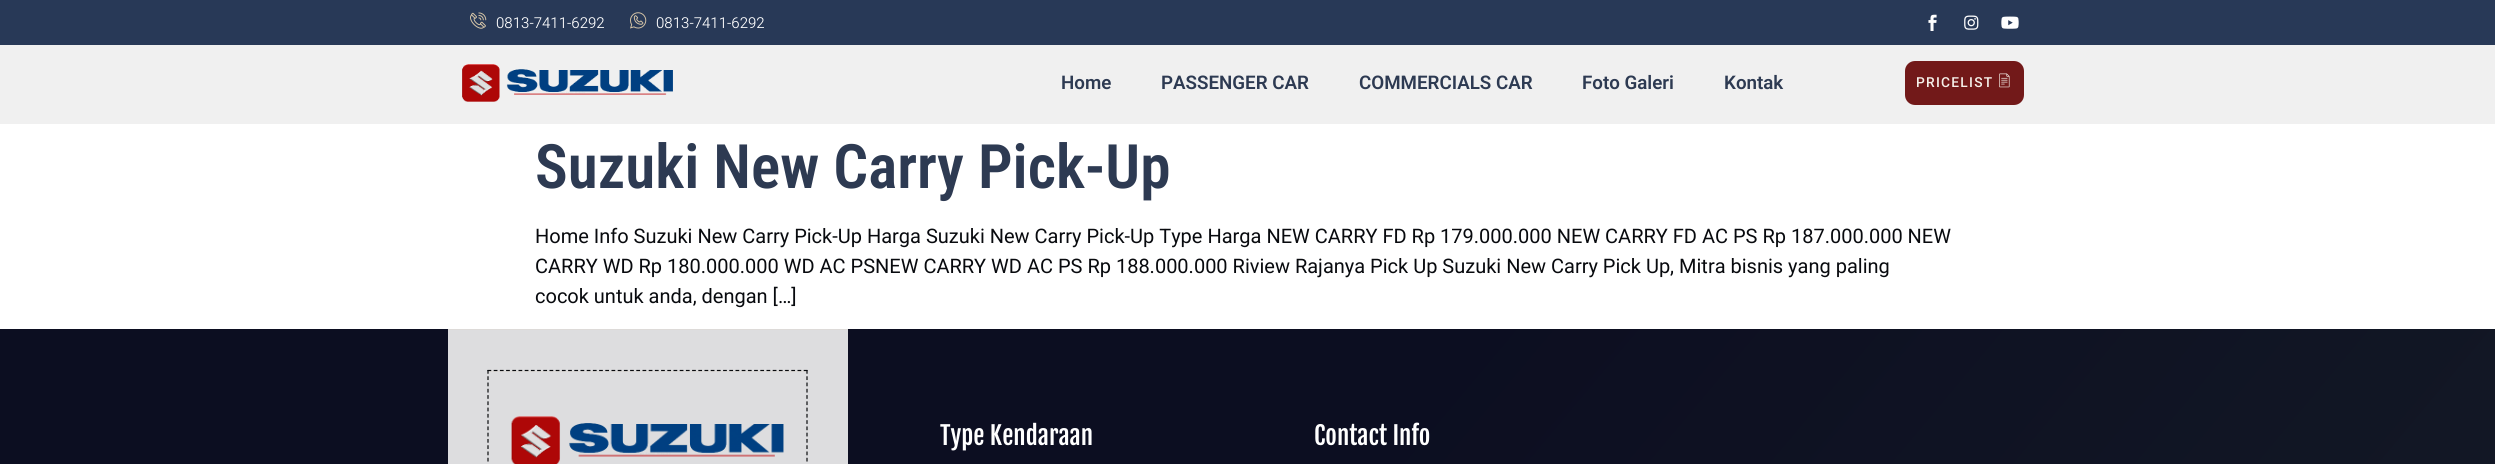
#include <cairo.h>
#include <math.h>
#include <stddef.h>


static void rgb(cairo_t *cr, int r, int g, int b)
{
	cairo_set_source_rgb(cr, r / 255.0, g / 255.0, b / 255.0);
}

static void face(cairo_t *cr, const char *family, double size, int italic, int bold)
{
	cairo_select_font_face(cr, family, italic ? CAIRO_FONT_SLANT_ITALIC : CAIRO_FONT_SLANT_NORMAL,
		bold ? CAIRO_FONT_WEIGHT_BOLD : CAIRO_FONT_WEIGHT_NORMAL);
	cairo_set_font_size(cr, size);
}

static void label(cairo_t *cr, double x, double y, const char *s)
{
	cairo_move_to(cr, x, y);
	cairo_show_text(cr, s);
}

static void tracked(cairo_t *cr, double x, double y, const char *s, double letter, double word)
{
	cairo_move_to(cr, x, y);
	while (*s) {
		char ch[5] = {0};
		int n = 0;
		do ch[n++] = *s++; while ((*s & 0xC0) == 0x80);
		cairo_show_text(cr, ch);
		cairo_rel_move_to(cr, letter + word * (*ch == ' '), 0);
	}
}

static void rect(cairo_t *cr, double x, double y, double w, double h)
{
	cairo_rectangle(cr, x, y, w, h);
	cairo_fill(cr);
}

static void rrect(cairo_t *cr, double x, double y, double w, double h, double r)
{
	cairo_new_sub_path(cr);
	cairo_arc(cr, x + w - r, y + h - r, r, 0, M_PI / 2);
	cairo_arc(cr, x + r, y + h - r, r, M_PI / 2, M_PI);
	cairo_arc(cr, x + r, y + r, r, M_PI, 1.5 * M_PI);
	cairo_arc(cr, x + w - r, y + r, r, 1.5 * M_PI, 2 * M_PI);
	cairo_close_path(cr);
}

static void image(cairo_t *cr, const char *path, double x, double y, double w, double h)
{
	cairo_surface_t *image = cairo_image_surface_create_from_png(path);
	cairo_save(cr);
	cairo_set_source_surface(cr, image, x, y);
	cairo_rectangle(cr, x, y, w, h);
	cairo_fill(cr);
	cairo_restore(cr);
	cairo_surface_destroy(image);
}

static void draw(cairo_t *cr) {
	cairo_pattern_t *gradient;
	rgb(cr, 255, 255, 255);
	cairo_paint(cr);
	rgb(cr, 40, 57, 87);
	rect(cr, 0, 0, 2495, 45);
	image(cr, "image0.png", 470, 12, 17, 17);
	face(cr, "Heebo Light", 15, 0, 0);
	rgb(cr, 255, 255, 255);
	label(cr, 496, 28, "0813-7411-6292");
	image(cr, "image1.png", 630, 12, 17, 17);
	label(cr, 656, 28, "0813-7411-6292");
	image(cr, "image2.png", 1928, 14, 9, 17);
	image(cr, "image3.png", 1964, 15, 15, 15);
	image(cr, "image4.png", 2001, 16, 18, 13);
	rgb(cr, 240, 240, 240);
	rect(cr, 0, 45, 2495, 79);
	image(cr, "image5.png", 462, 64, 211, 38);
	face(cr, "Roboto SemiBold", 18.75, 0, 0);
	rgb(cr, 45, 58, 82);
	label(cr, 1061, 89, "Home");
	label(cr, 1161, 89, "PASSENGER CAR");
	label(cr, 1359, 89, "COMMERCIALS CAR");
	label(cr, 1582, 89, "Foto Galeri");
	label(cr, 1724, 89, "Kontak");
	rgb(cr, 114, 25, 25);
	rrect(cr, 1905, 61, 119, 44, 10);
	cairo_fill(cr);
	face(cr, "Roboto Medium", 13.75, 0, 0);
	rgb(cr, 245, 241, 234);
	tracked(cr, 1916, 87, "PRICELIST", 1.25, 0);
	image(cr, "image6.png", 1999, 73, 11, 15);
	face(cr, "Roboto Condensed SemiBold", 61.25, 0, 0);
	rgb(cr, 45, 58, 82);
	label(cr, 535, 188, "Suzuki New Carry Pick-Up");
	face(cr, "Roboto", 20, 0, 0);
	rgb(cr, 8, 10, 14);
	label(cr, 535, 243, "Home Info Suzuki New Carry Pick-Up Harga Suzuki New Carry Pick-Up Type Harga NEW CARRY FD Rp 179.000.000 NEW CARRY FD AC PS Rp 187.000.000 NEW");
	label(cr, 535, 273, "CARRY WD Rp 180.000.000 WD AC PSNEW CARRY WD AC PS Rp 188.000.000 Riview Rajanya Pick Up Suzuki New Carry Pick Up, Mitra bisnis yang paling");
	label(cr, 535, 303, "cocok untuk anda, dengan […]");
	gradient = cairo_pattern_create_linear(391, -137, 2104, 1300);
	cairo_pattern_add_color_stop_rgba(gradient, 0.5, 0.047, 0.055, 0.129, 1);
	cairo_pattern_add_color_stop_rgba(gradient, 1, 0.078, 0.102, 0.149, 1);
	cairo_set_source(cr, gradient);
	cairo_pattern_destroy(gradient);
	rect(cr, 0, 329, 2495, 135);
	rgb(cr, 221, 221, 223);
	rect(cr, 448, 330, 400, 134);
	rgb(cr, 221, 218, 216);
	rect(cr, 448, 329, 400, 1);
	cairo_new_path(cr);
	cairo_move_to(cr, 487.5, 370.5);
	cairo_line_to(cr, 807.5, 370.5);
	rgb(cr, 8, 10, 14);
	cairo_set_line_width(cr, 1.2);
	cairo_set_dash(cr, (double[]){3.75, 2.45}, 2, 0);
	cairo_stroke(cr);
	cairo_new_path(cr);
	cairo_move_to(cr, 807, 370);
	cairo_line_to(cr, 807, 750);
	cairo_set_dash(cr, (double[]){3.75, 2.52}, 2, 0);
	cairo_stroke(cr);
	cairo_new_path(cr);
	cairo_move_to(cr, 488, 370);
	cairo_line_to(cr, 488, 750);
	cairo_stroke(cr);
	cairo_set_source_rgba(cr, 0.867, 0.808, 0.733, 0.19);
	rect(cr, 489, 371, 317, 1);
	image(cr, "image7.png", 511, 416, 273, 48);
	face(cr, "Fjalla One", 25, 0, 0);
	rgb(cr, 255, 255, 255);
	label(cr, 940, 445, "Type Kendaraan");
	label(cr, 1314, 445, "Contact Info");
}

int main(void) {
	cairo_surface_t *surface = cairo_image_surface_create(CAIRO_FORMAT_RGB24, 2495, 464);
	cairo_t *cr = cairo_create(surface);
	cairo_font_options_t *options = cairo_font_options_create();
	cairo_font_options_set_hint_metrics(options, CAIRO_HINT_METRICS_OFF);
	cairo_font_options_set_hint_style(options, CAIRO_HINT_STYLE_NONE);
	cairo_set_font_options(cr, options);
	cairo_set_miter_limit(cr, 4);
	draw(cr);
	cairo_surface_write_to_png(surface, "render.png");
	cairo_font_options_destroy(options);
	cairo_destroy(cr);
	cairo_surface_destroy(surface);
	return 0;
}
